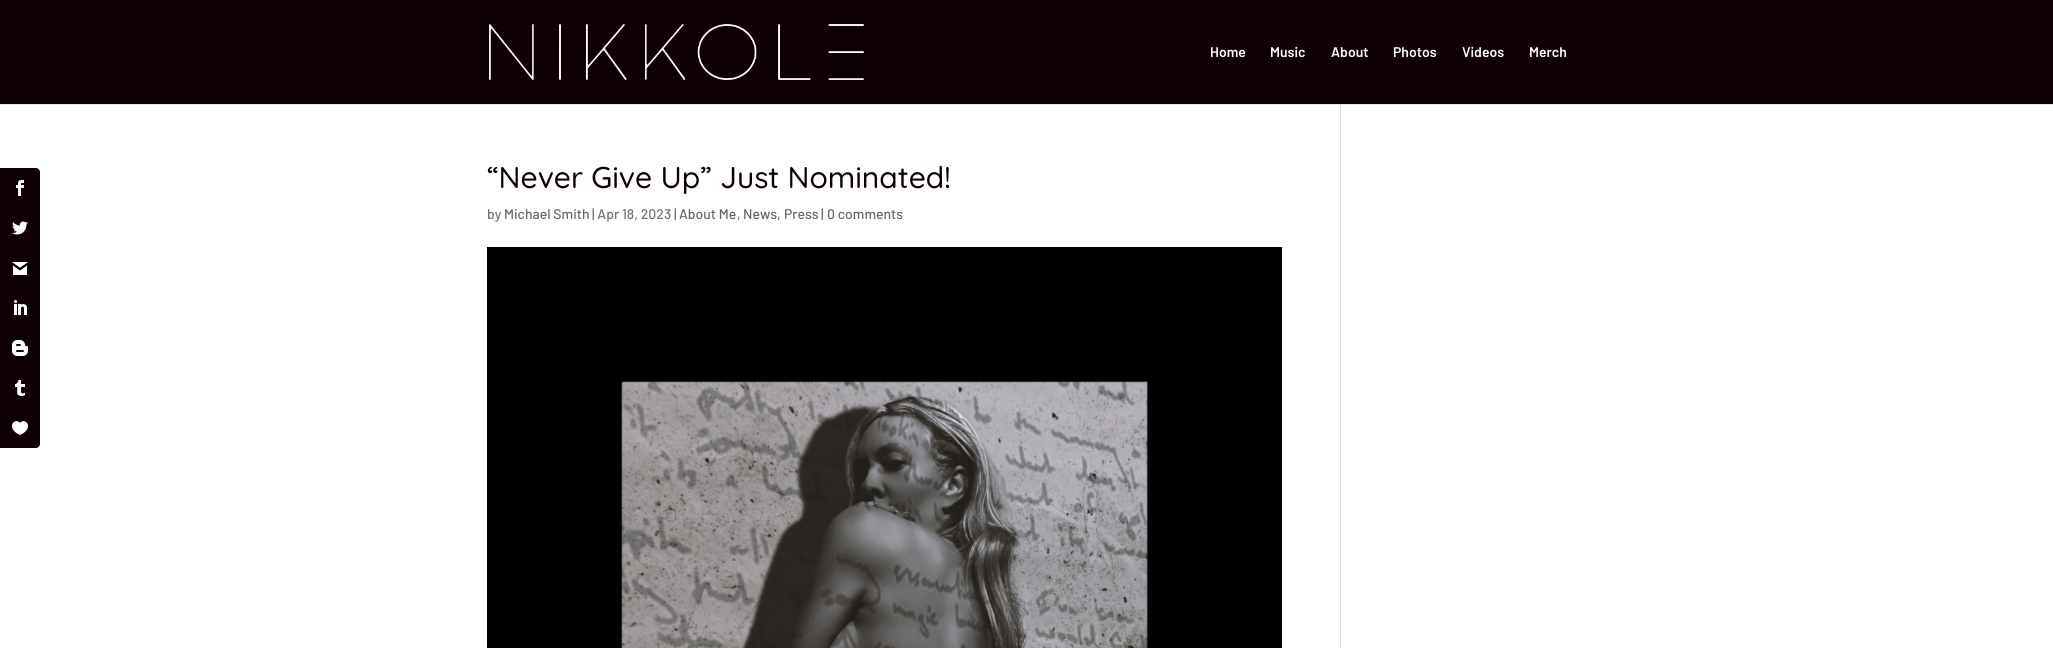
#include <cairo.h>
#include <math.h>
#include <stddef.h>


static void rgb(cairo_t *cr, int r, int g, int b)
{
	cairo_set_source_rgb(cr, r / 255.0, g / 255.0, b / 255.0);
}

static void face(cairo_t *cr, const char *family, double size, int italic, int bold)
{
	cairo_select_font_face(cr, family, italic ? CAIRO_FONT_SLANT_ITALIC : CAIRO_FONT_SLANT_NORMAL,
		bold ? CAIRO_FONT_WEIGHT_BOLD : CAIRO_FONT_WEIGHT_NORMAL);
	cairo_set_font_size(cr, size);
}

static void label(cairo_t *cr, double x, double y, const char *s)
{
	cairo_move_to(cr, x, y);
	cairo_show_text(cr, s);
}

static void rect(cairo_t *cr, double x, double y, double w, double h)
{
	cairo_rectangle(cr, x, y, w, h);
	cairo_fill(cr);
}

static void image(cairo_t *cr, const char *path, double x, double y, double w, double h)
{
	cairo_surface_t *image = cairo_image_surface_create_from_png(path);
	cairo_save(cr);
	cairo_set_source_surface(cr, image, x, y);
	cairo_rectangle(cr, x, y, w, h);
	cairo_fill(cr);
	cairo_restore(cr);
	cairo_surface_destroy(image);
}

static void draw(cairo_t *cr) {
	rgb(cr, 255, 255, 255);
	cairo_paint(cr);
	rgb(cr, 230, 230, 230);
	rect(cr, 0, 104, 2053, 1);
	rgb(cr, 14, 0, 2);
	rect(cr, 0, 0, 2053, 104);
	image(cr, "image0.png", 489, 24, 375, 56);
	face(cr, "Barlow SemiBold", 14, 0, 0);
	rgb(cr, 255, 255, 255);
	label(cr, 1210, 57, "Home");
	label(cr, 1270, 57, "Music");
	label(cr, 1331, 57, "About");
	label(cr, 1393, 57, "Photos");
	label(cr, 1462, 57, "Videos");
	label(cr, 1529, 57, "Merch");
	face(cr, "Quicksand Medium", 30, 0, 0);
	rgb(cr, 14, 0, 2);
	label(cr, 487, 188, "“Never Give Up” Just Nominated!");
	face(cr, "Barlow Medium", 14, 0, 0);
	rgb(cr, 114, 114, 116);
	label(cr, 487, 219, "by");
	rgb(cr, 102, 102, 102);
	label(cr, 504, 219, "Michael Smith");
	rgb(cr, 114, 114, 116);
	label(cr, 592, 219, "| Apr 18, 2023 |");
	rgb(cr, 102, 102, 102);
	label(cr, 679, 219, "About Me");
	rgb(cr, 114, 114, 116);
	label(cr, 737, 219, ",");
	rgb(cr, 102, 102, 102);
	label(cr, 743, 219, "News");
	rgb(cr, 114, 114, 116);
	label(cr, 777, 219, ",");
	rgb(cr, 102, 102, 102);
	label(cr, 784, 219, "Press");
	rgb(cr, 114, 114, 116);
	label(cr, 821, 219, "|");
	rgb(cr, 102, 102, 102);
	label(cr, 827, 219, "0 comments");
	image(cr, "image1.png", 487, 247, 795, 401);
	rgb(cr, 226, 226, 226);
	rect(cr, 1340, 104, 1, 544);
	rgb(cr, 203, 203, 203);
	rect(cr, 1340, 104, 1, 1);
	rgb(cr, 14, 0, 2);
	cairo_new_path(cr);
	cairo_move_to(cr, 0, 168);
	cairo_line_to(cr, 36, 168);
	cairo_curve_to(cr, 38, 168, 40, 170, 40, 172);
	cairo_line_to(cr, 40, 208);
	cairo_line_to(cr, 0, 208);
	cairo_close_path(cr);
	cairo_fill(cr);
	image(cr, "image2.png", 16, 180, 8, 16);
	rect(cr, 0, 208, 40, 200);
	image(cr, "image3.png", 12, 221, 16, 14);
	image(cr, "image4.png", 12, 262, 16, 13);
	image(cr, "image5.png", 14, 300, 13, 15);
	image(cr, "image6.png", 12, 340, 16, 16);
	image(cr, "image7.png", 15, 380, 10, 16);
	cairo_new_path(cr);
	cairo_move_to(cr, 0, 408);
	cairo_line_to(cr, 40, 408);
	cairo_line_to(cr, 40, 444);
	cairo_curve_to(cr, 40, 446, 38, 448, 36, 448);
	cairo_line_to(cr, 0, 448);
	cairo_close_path(cr);
	cairo_fill(cr);
	image(cr, "image8.png", 12, 421, 16, 14);
}

int main(void) {
	cairo_surface_t *surface = cairo_image_surface_create(CAIRO_FORMAT_RGB24, 2053, 648);
	cairo_t *cr = cairo_create(surface);
	cairo_font_options_t *options = cairo_font_options_create();
	cairo_font_options_set_hint_metrics(options, CAIRO_HINT_METRICS_OFF);
	cairo_font_options_set_hint_style(options, CAIRO_HINT_STYLE_NONE);
	cairo_set_font_options(cr, options);
	cairo_set_miter_limit(cr, 4);
	draw(cr);
	cairo_surface_write_to_png(surface, "render.png");
	cairo_font_options_destroy(options);
	cairo_destroy(cr);
	cairo_surface_destroy(surface);
	return 0;
}
